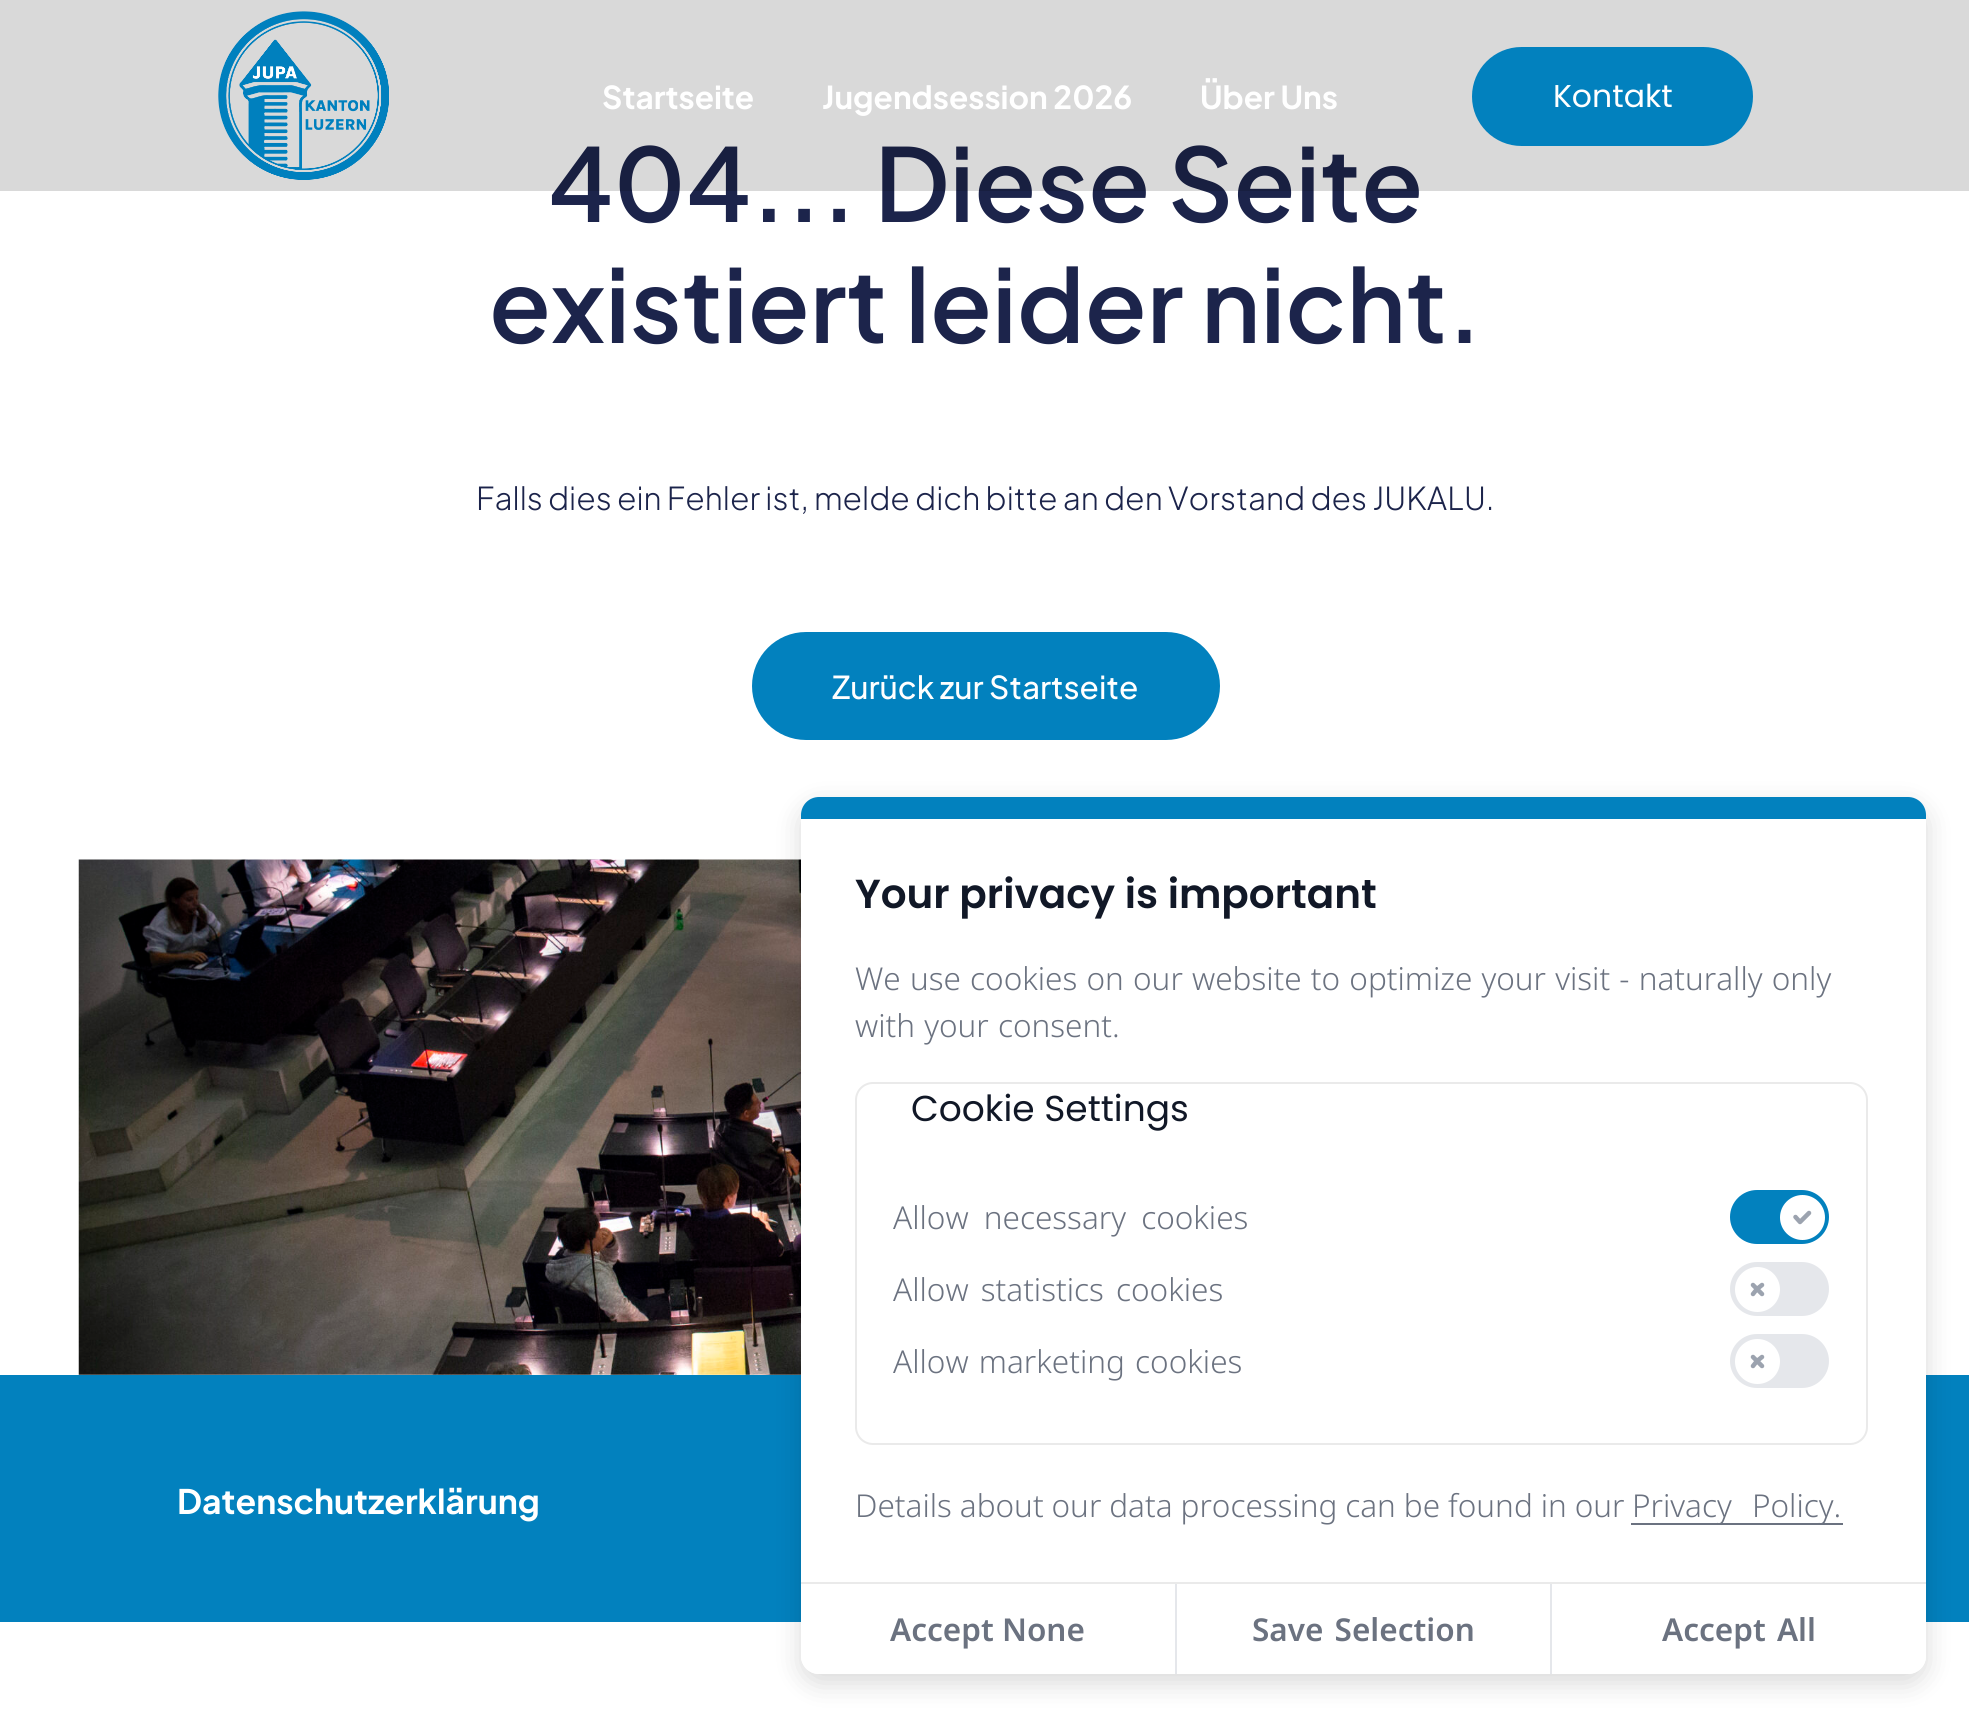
#include <cairo.h>
#include <math.h>
#include <stddef.h>


static void rgb(cairo_t *cr, int r, int g, int b)
{
	cairo_set_source_rgb(cr, r / 255.0, g / 255.0, b / 255.0);
}

static void face(cairo_t *cr, const char *family, double size, int italic, int bold)
{
	cairo_select_font_face(cr, family, italic ? CAIRO_FONT_SLANT_ITALIC : CAIRO_FONT_SLANT_NORMAL,
		bold ? CAIRO_FONT_WEIGHT_BOLD : CAIRO_FONT_WEIGHT_NORMAL);
	cairo_set_font_size(cr, size);
}

static void label(cairo_t *cr, double x, double y, const char *s)
{
	cairo_move_to(cr, x, y);
	cairo_show_text(cr, s);
}

static void tracked(cairo_t *cr, double x, double y, const char *s, double letter, double word)
{
	cairo_move_to(cr, x, y);
	while (*s) {
		char ch[5] = {0};
		int n = 0;
		do ch[n++] = *s++; while ((*s & 0xC0) == 0x80);
		cairo_show_text(cr, ch);
		cairo_rel_move_to(cr, letter + word * (*ch == ' '), 0);
	}
}

static void rect(cairo_t *cr, double x, double y, double w, double h)
{
	cairo_rectangle(cr, x, y, w, h);
	cairo_fill(cr);
}

static void rrect(cairo_t *cr, double x, double y, double w, double h, double r)
{
	cairo_new_sub_path(cr);
	cairo_arc(cr, x + w - r, y + h - r, r, 0, M_PI / 2);
	cairo_arc(cr, x + r, y + h - r, r, M_PI / 2, M_PI);
	cairo_arc(cr, x + r, y + r, r, M_PI, 1.5 * M_PI);
	cairo_arc(cr, x + w - r, y + r, r, 1.5 * M_PI, 2 * M_PI);
	cairo_close_path(cr);
}

static void soft_shadow(cairo_t *cr, double x, double y, double w, double h, double r, double blur, double alpha)
{
	cairo_push_group_with_content(cr, CAIRO_CONTENT_ALPHA);
	cairo_set_operator(cr, CAIRO_OPERATOR_SOURCE);
	for (int i = 15; i >= -15 && fmin(w, h) + blur * i / 3 > 0; i -= 2) {
		double e = blur * i / 6;
		cairo_set_source_rgba(cr, 0, 0, 0, alpha * erfc((i - 1) / 8.5) / 2);
		rrect(cr, x - e, y - e, w + 2 * e, h + 2 * e, fmax(0, fmin(r + e + blur * .6, fmin(w, h) / 2 + e)));
		cairo_fill(cr);
	}
	cairo_pattern_t *soft = cairo_pop_group(cr);
	cairo_mask(cr, soft);
	cairo_pattern_destroy(soft);
}

static void image(cairo_t *cr, const char *path, double x, double y, double w, double h)
{
	cairo_surface_t *image = cairo_image_surface_create_from_png(path);
	cairo_save(cr);
	cairo_set_source_surface(cr, image, x, y);
	cairo_rectangle(cr, x, y, w, h);
	cairo_fill(cr);
	cairo_restore(cr);
	cairo_surface_destroy(image);
}

static void draw(cairo_t *cr) {
	rgb(cr, 255, 255, 255);
	cairo_paint(cr);
	face(cr, "Plus Jakarta Sans SemiBold", 101.25, 0, 0);
	rgb(cr, 28, 36, 75);
	label(cr, 548, 222, "404... Diese Seite");
	cairo_set_source_rgba(cr, 0, 0, 0, 0.15);
	rect(cr, 0, 0, 1969, 191);
	image(cr, "image0.png", 218, 11, 171, 169);
	face(cr, "Plus Jakarta Sans", 31.5, 0, 1);
	rgb(cr, 255, 255, 255);
	label(cr, 602, 109, "Startseite");
	label(cr, 822, 109, "Jugendsession 2026");
	label(cr, 1200, 109, "Über Uns");
	rgb(cr, 2, 129, 190);
	rrect(cr, 1473, 48, 279, 97, 48.5);
	cairo_fill_preserve(cr);
	cairo_stroke(cr);
	face(cr, "Poppins", 31.5, 0, 0);
	rgb(cr, 255, 255, 255);
	label(cr, 1553, 107, "Kontakt");
	face(cr, "Plus Jakarta Sans SemiBold", 101.25, 0, 0);
	rgb(cr, 28, 36, 75);
	label(cr, 489, 343, "existiert leider nicht.");
	face(cr, "Plus Jakarta Sans Light", 31.5, 0, 0);
	label(cr, 476, 510, "Falls dies ein Fehler ist, melde dich bitte an den Vorstand des JUKALU.");
	rgb(cr, 2, 129, 190);
	rrect(cr, 753, 633, 466, 106, 53);
	cairo_fill_preserve(cr);
	cairo_stroke(cr);
	face(cr, "Plus Jakarta Sans Medium", 31.5, 0, 0);
	rgb(cr, 255, 255, 255);
	label(cr, 832, 699, "Zurück zur Startseite");
	image(cr, "image1.png", 78, 859, 723, 516);
	rgb(cr, 2, 129, 190);
	rect(cr, 0, 1375, 1969, 247);
	face(cr, "Plus Jakarta Sans", 33.75, 0, 1);
	rgb(cr, 255, 255, 255);
	label(cr, 177, 1514, "Datenschutzerklärung");
	rgb(cr, 0, 0, 0);
	soft_shadow(cr, 801, 806, 1125, 877, 18, 13.5, 0.15);
	rgb(cr, 255, 255, 255);
	rrect(cr, 801, 797, 1125, 877, 18);
	cairo_fill(cr);
	rgb(cr, 2, 129, 190);
	cairo_new_path(cr);
	cairo_move_to(cr, 819, 797);
	cairo_line_to(cr, 1908, 797);
	cairo_curve_to(cr, 1918, 797, 1926, 805, 1926, 815);
	cairo_line_to(cr, 1926, 819);
	cairo_line_to(cr, 801, 819);
	cairo_line_to(cr, 801, 815);
	cairo_curve_to(cr, 801, 805, 809, 797, 819, 797);
	cairo_close_path(cr);
	cairo_fill(cr);
	face(cr, "Poppins SemiBold", 40.5, 0, 0);
	rgb(cr, 17, 24, 39);
	label(cr, 855, 908, "Your privacy is important");
	face(cr, "Noto Sans Light", 31.5, 0, 0);
	rgb(cr, 107, 114, 128);
	tracked(cr, 855, 990, "We use cookies on our website to optimize your visit - naturally only", 0, 1);
	tracked(cr, 855, 1037, "with your consent.", 0, 1);
	rrect(cr, 856, 1083, 1011, 361, 17);
	rgb(cr, 234, 234, 234);
	cairo_stroke(cr);
	face(cr, "Poppins", 36, 0, 0);
	rgb(cr, 17, 24, 39);
	label(cr, 911, 1121, "Cookie Settings");
	face(cr, "Noto Sans Light", 31.5, 0, 0);
	rgb(cr, 107, 114, 128);
	tracked(cr, 893, 1229, "Allow necessary cookies", 0, 7);
	rgb(cr, 2, 129, 190);
	rrect(cr, 1730, 1190, 99, 54, 27);
	cairo_fill(cr);
	rgb(cr, 255, 255, 255);
	cairo_arc(cr, 1802.5, 1217.5, 22.5, 0, 2 * M_PI);
	cairo_fill(cr);
	cairo_new_path(cr);
	cairo_move_to(cr, 1809, 1213);
	cairo_line_to(cr, 1800, 1222);
	cairo_line_to(cr, 1795.5, 1217);
	rgb(cr, 156, 163, 175);
	cairo_set_line_width(cr, 4.5);
	cairo_set_line_cap(cr, CAIRO_LINE_CAP_ROUND);
	cairo_set_line_join(cr, CAIRO_LINE_JOIN_ROUND);
	cairo_stroke(cr);
	rgb(cr, 107, 114, 128);
	tracked(cr, 893, 1301, "Allow statistics cookies", 0, 4);
	rgb(cr, 229, 231, 235);
	rrect(cr, 1730, 1262, 99, 54, 27);
	cairo_fill(cr);
	rgb(cr, 255, 255, 255);
	cairo_arc(cr, 1757.5, 1289.5, 22.5, 0, 2 * M_PI);
	cairo_fill(cr);
	cairo_new_path(cr);
	cairo_move_to(cr, 1757, 1289);
	cairo_line_to(cr, 1762, 1294);
	cairo_move_to(cr, 1753, 1294);
	cairo_line_to(cr, 1757, 1289);
	cairo_close_path(cr);
	cairo_move_to(cr, 1757, 1289);
	cairo_line_to(cr, 1762, 1285);
	cairo_close_path(cr);
	cairo_move_to(cr, 1757, 1289);
	cairo_line_to(cr, 1753, 1285);
	cairo_close_path(cr);
	rgb(cr, 156, 163, 175);
	cairo_stroke(cr);
	rgb(cr, 107, 114, 128);
	tracked(cr, 893, 1373, "Allow marketing cookies", 0, 2);
	rgb(cr, 229, 231, 235);
	rrect(cr, 1730, 1334, 99, 54, 27);
	cairo_fill(cr);
	rgb(cr, 255, 255, 255);
	cairo_arc(cr, 1757.5, 1361.5, 22.5, 0, 2 * M_PI);
	cairo_fill(cr);
	cairo_new_path(cr);
	cairo_move_to(cr, 1757, 1361);
	cairo_line_to(cr, 1762, 1366);
	cairo_move_to(cr, 1753, 1366);
	cairo_line_to(cr, 1757, 1361);
	cairo_close_path(cr);
	cairo_move_to(cr, 1757, 1361);
	cairo_line_to(cr, 1762, 1357);
	cairo_close_path(cr);
	cairo_move_to(cr, 1757, 1361);
	cairo_line_to(cr, 1753, 1357);
	cairo_close_path(cr);
	rgb(cr, 156, 163, 175);
	cairo_stroke(cr);
	rgb(cr, 107, 114, 128);
	tracked(cr, 855, 1517, "Details about our data processing can be found in our", 0, -0.25);
	rect(cr, 1631, 1523, 212, 2);
	tracked(cr, 1632, 1517, "Privacy Policy.", 0, 12);
	rgb(cr, 234, 234, 234);
	rect(cr, 801, 1582, 1125, 2);
	rgb(cr, 255, 255, 255);
	cairo_new_path(cr);
	cairo_move_to(cr, 801, 1584);
	cairo_line_to(cr, 1175, 1584);
	cairo_line_to(cr, 1175, 1674);
	cairo_line_to(cr, 819, 1674);
	cairo_curve_to(cr, 809, 1674, 801, 1666, 801, 1656);
	cairo_close_path(cr);
	cairo_fill(cr);
	face(cr, "Noto Sans SemiBold", 31.5, 0, 0);
	rgb(cr, 107, 114, 128);
	label(cr, 890, 1641, "Accept None");
	rgb(cr, 229, 231, 235);
	rect(cr, 1550, 1584, 2, 90);
	rect(cr, 1175, 1584, 2, 90);
	rgb(cr, 107, 114, 128);
	tracked(cr, 1252, 1641, "Save Selection", 0, 3);
	rgb(cr, 255, 255, 255);
	cairo_new_path(cr);
	cairo_move_to(cr, 1553, 1584);
	cairo_line_to(cr, 1926, 1584);
	cairo_line_to(cr, 1926, 1656);
	cairo_curve_to(cr, 1926, 1666, 1918, 1674, 1908, 1674);
	cairo_line_to(cr, 1553, 1674);
	cairo_close_path(cr);
	cairo_fill(cr);
	rgb(cr, 107, 114, 128);
	tracked(cr, 1662, 1641, "Accept All", 0, 3);
}

int main(void) {
	cairo_surface_t *surface = cairo_image_surface_create(CAIRO_FORMAT_RGB24, 1969, 1718);
	cairo_t *cr = cairo_create(surface);
	cairo_font_options_t *options = cairo_font_options_create();
	cairo_font_options_set_hint_metrics(options, CAIRO_HINT_METRICS_OFF);
	cairo_font_options_set_hint_style(options, CAIRO_HINT_STYLE_NONE);
	cairo_set_font_options(cr, options);
	cairo_set_miter_limit(cr, 4);
	draw(cr);
	cairo_surface_write_to_png(surface, "render.png");
	cairo_font_options_destroy(options);
	cairo_destroy(cr);
	cairo_surface_destroy(surface);
	return 0;
}
